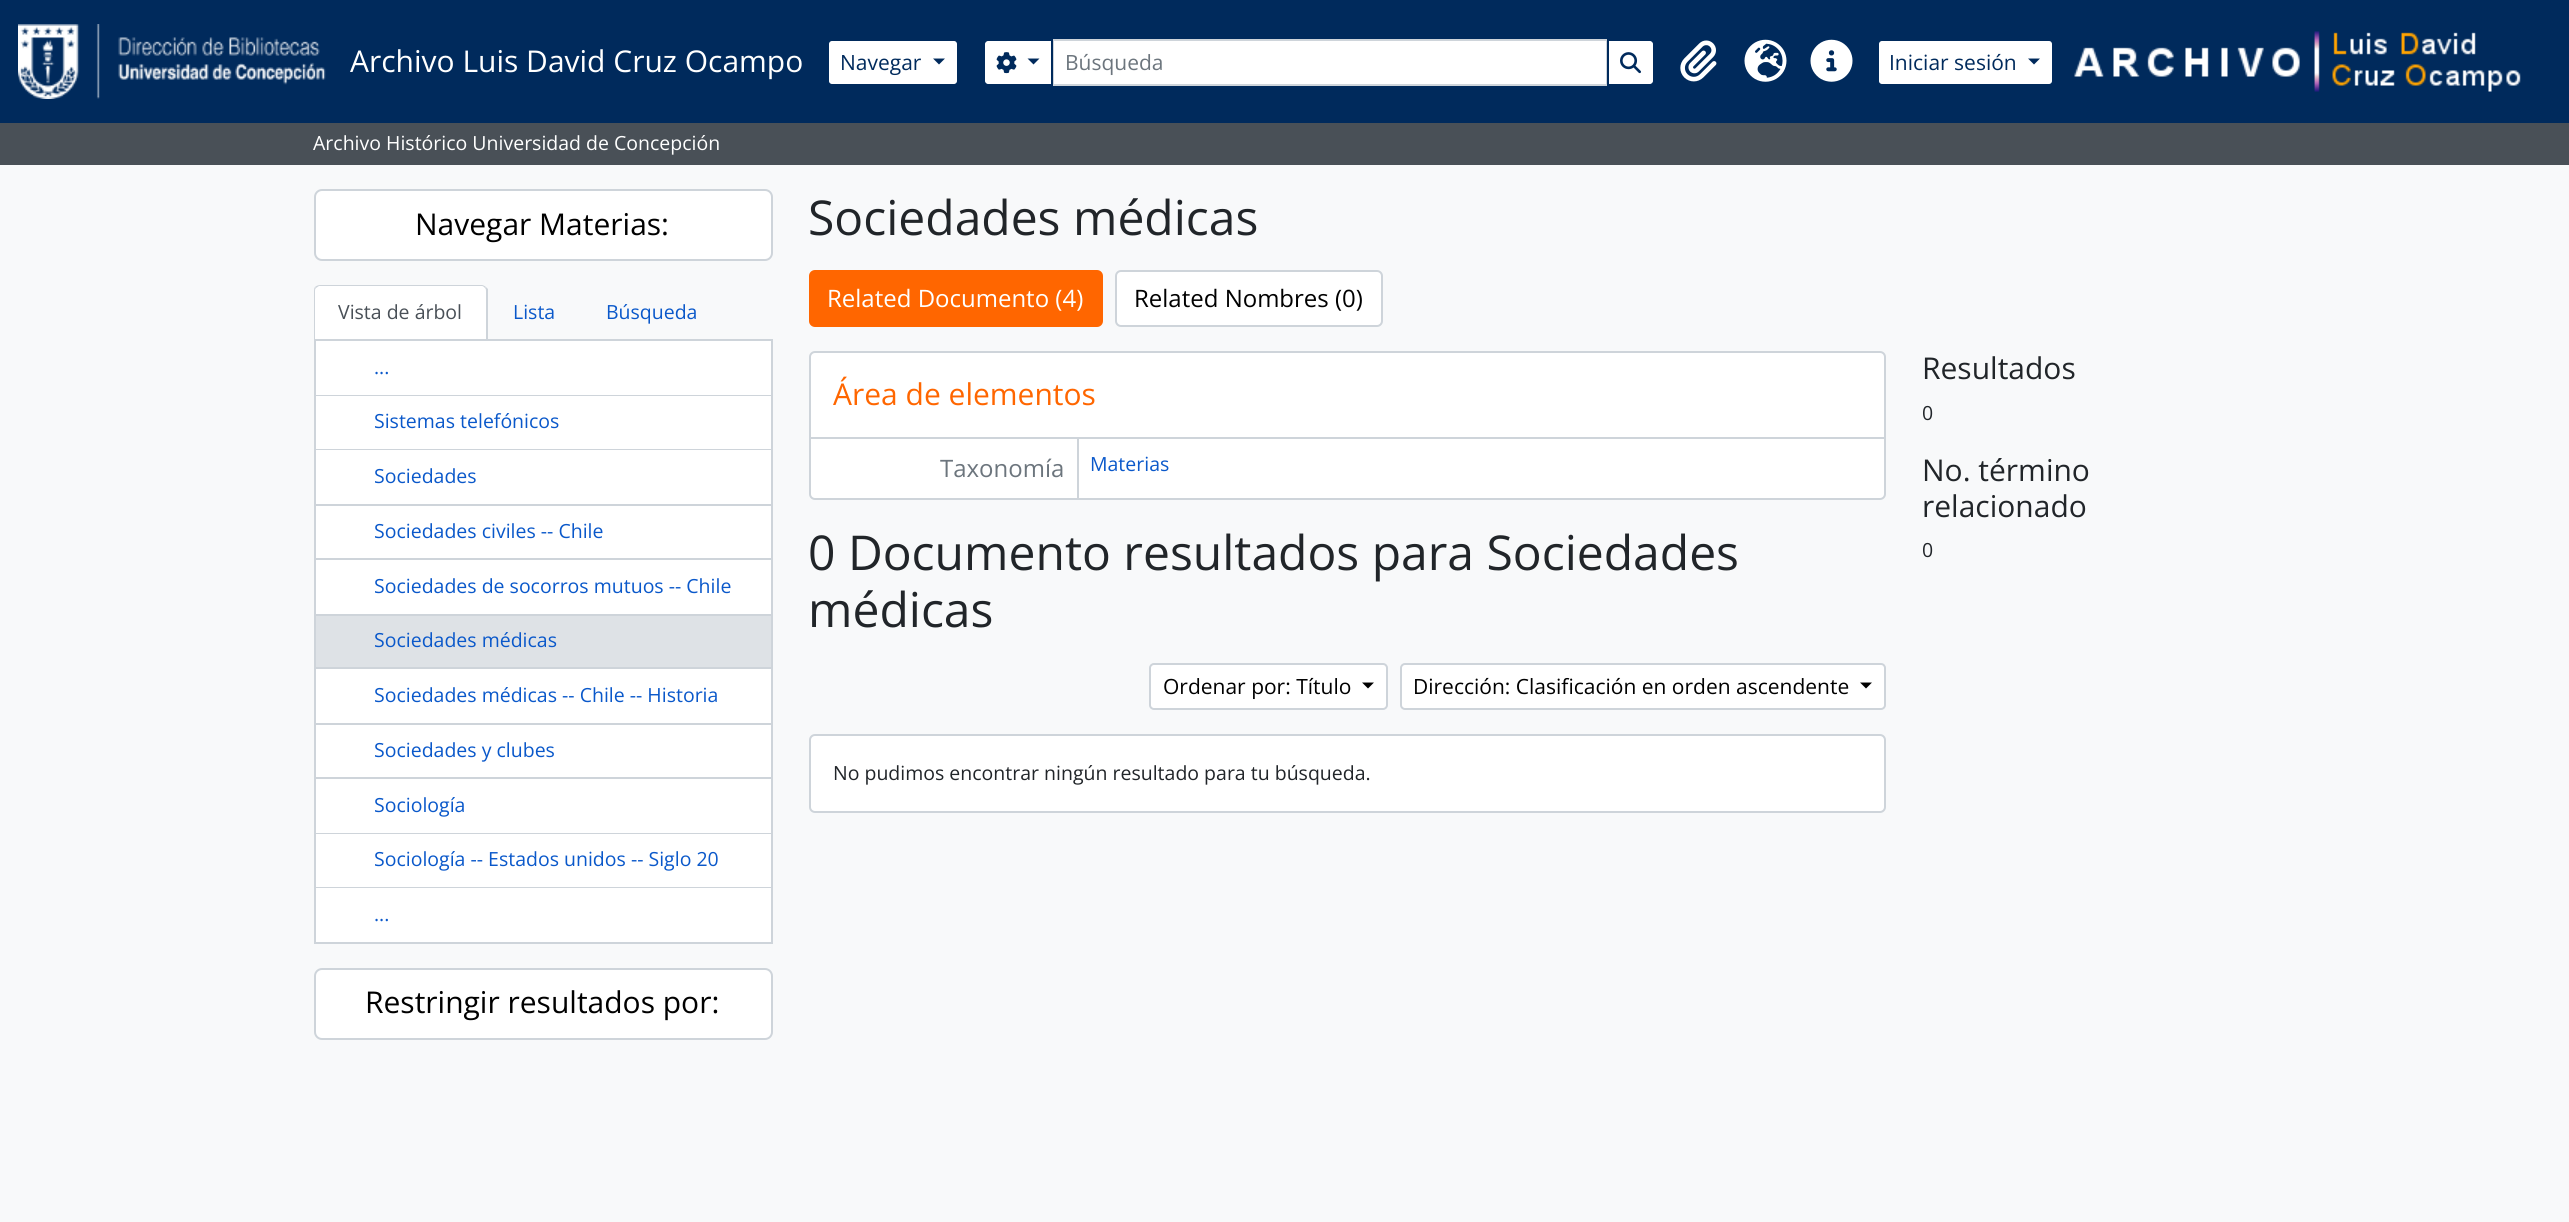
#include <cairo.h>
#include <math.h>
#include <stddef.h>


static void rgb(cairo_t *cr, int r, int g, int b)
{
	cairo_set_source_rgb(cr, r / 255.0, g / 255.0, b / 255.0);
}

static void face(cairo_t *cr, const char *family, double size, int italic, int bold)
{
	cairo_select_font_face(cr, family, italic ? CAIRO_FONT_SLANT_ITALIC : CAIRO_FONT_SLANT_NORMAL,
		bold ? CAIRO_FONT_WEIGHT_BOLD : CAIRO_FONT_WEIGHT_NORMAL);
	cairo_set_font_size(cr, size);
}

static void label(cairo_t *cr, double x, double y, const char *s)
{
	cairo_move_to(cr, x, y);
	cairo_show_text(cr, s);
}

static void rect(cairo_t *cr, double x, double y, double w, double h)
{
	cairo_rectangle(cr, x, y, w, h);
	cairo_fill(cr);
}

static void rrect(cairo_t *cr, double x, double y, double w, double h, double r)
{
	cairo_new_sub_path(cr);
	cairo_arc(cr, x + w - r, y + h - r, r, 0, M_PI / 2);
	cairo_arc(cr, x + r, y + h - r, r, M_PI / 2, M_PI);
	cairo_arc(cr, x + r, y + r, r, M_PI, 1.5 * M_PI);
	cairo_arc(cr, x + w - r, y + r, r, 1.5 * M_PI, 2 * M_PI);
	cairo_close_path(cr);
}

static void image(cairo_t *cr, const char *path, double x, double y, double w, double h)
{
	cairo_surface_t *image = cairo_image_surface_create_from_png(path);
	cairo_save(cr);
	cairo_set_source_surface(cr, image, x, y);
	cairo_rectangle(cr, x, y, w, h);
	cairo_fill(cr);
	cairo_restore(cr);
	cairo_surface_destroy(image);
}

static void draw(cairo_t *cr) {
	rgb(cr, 248, 249, 250);
	cairo_paint(cr);
	rgb(cr, 0, 42, 92);
	rect(cr, 0, 0, 2569, 123);
	image(cr, "image0.png", 18, 24, 308, 75);
	face(cr, "Open Sans", 30, 0, 0);
	rgb(cr, 255, 255, 255);
	label(cr, 350, 72, "Archivo Luis David Cruz Ocampo");
	rrect(cr, 828, 40, 130, 45, 4);
	cairo_fill_preserve(cr);
	rgb(cr, 0, 42, 92);
	cairo_stroke(cr);
	face(cr, "Open Sans", 21, 0, 0);
	label(cr, 840, 70, "Navegar");
	cairo_new_path(cr);
	cairo_move_to(cr, 933, 58.5);
	cairo_line_to(cr, 945, 58.5);
	cairo_line_to(cr, 939, 64.5);
	cairo_close_path(cr);
	cairo_fill(cr);
	rgb(cr, 255, 255, 255);
	cairo_rectangle(cr, 1053, 40, 554, 45);
	cairo_fill_preserve(cr);
	rgb(cr, 206, 212, 218);
	cairo_stroke(cr);
	rgb(cr, 255, 255, 255);
	cairo_new_path(cr);
	cairo_move_to(cr, 988, 40);
	cairo_line_to(cr, 1052, 40);
	cairo_line_to(cr, 1052, 85);
	cairo_line_to(cr, 988, 85);
	cairo_curve_to(cr, 986, 85, 984, 83, 984, 81);
	cairo_line_to(cr, 984, 44);
	cairo_curve_to(cr, 984, 42, 986, 40, 988, 40);
	cairo_close_path(cr);
	cairo_fill_preserve(cr);
	rgb(cr, 0, 42, 92);
	cairo_stroke(cr);
	image(cr, "image1.png", 996, 52, 21, 22);
	cairo_new_path(cr);
	cairo_move_to(cr, 1027.5, 58.5);
	cairo_line_to(cr, 1039.5, 58.5);
	cairo_line_to(cr, 1033.5, 64.5);
	cairo_close_path(cr);
	cairo_fill(cr);
	rgb(cr, 108, 117, 125);
	label(cr, 1065, 70, "Búsqueda");
	rgb(cr, 255, 255, 255);
	cairo_new_path(cr);
	cairo_move_to(cr, 1608, 40);
	cairo_line_to(cr, 1650, 40);
	cairo_curve_to(cr, 1652, 40, 1654, 42, 1654, 44);
	cairo_line_to(cr, 1654, 81);
	cairo_curve_to(cr, 1654, 83, 1652, 85, 1650, 85);
	cairo_line_to(cr, 1608, 85);
	cairo_close_path(cr);
	cairo_fill_preserve(cr);
	rgb(cr, 0, 42, 92);
	cairo_stroke(cr);
	image(cr, "image2.png", 1620, 52, 21, 22);
	image(cr, "image3.png", 1680, 40, 37, 42);
	image(cr, "image4.png", 1744, 39, 43, 43);
	image(cr, "image5.png", 1810, 39, 43, 43);
	rgb(cr, 255, 255, 255);
	rrect(cr, 1878, 40, 175, 45, 4);
	cairo_fill_preserve(cr);
	rgb(cr, 0, 42, 92);
	cairo_stroke(cr);
	label(cr, 1889, 70, "Iniciar sesión");
	cairo_new_path(cr);
	cairo_move_to(cr, 2028, 58.5);
	cairo_line_to(cr, 2040, 58.5);
	cairo_line_to(cr, 2034, 64.5);
	cairo_close_path(cr);
	cairo_fill(cr);
	image(cr, "image6.png", 2074, 31, 447, 61);
	rgb(cr, 73, 80, 87);
	rect(cr, 0, 123, 2569, 42);
	face(cr, "Open Sans", 19.5, 0, 0);
	rgb(cr, 255, 255, 255);
	label(cr, 313, 150, "Archivo Histórico Universidad de Concepción");
	rrect(cr, 315, 190, 457, 70, 7);
	cairo_fill_preserve(cr);
	rgb(cr, 206, 212, 218);
	cairo_stroke(cr);
	face(cr, "Open Sans", 30, 0, 0);
	rgb(cr, 0, 0, 0);
	label(cr, 415, 235, "Navegar Materias:");
	rgb(cr, 255, 255, 255);
	cairo_new_path(cr);
	cairo_move_to(cr, 320, 285);
	cairo_line_to(cr, 482, 285);
	cairo_curve_to(cr, 485.5, 285, 488, 287.5, 488, 291);
	cairo_line_to(cr, 488, 341);
	cairo_line_to(cr, 314, 341);
	cairo_line_to(cr, 314, 291);
	cairo_curve_to(cr, 314, 287.5, 316.5, 285, 320, 285);
	cairo_close_path(cr);
	cairo_fill(cr);
	rgb(cr, 206, 212, 218);
	cairo_new_path(cr);
	cairo_move_to(cr, 320, 285);
	cairo_curve_to(cr, 318, 285, 316, 286, 315, 287);
	cairo_line_to(cr, 316, 288);
	cairo_line_to(cr, 319, 286);
	cairo_line_to(cr, 482, 286);
	cairo_curve_to(cr, 483, 286, 484, 287, 485, 288);
	cairo_line_to(cr, 486, 287);
	cairo_curve_to(cr, 485, 286, 483, 285, 482, 285);
	cairo_close_path(cr);
	cairo_fill(cr);
	cairo_new_path(cr);
	cairo_move_to(cr, 488, 340);
	cairo_line_to(cr, 486, 339);
	cairo_line_to(cr, 486, 291);
	cairo_curve_to(cr, 486, 290, 486, 289, 485, 288);
	cairo_line_to(cr, 486, 287);
	cairo_line_to(cr, 488, 289);
	cairo_close_path(cr);
	cairo_fill(cr);
	cairo_new_path(cr);
	cairo_move_to(cr, 315, 287);
	cairo_curve_to(cr, 314, 288, 314, 290, 314, 291);
	cairo_line_to(cr, 314, 340);
	cairo_line_to(cr, 315, 339);
	cairo_line_to(cr, 315, 291);
	cairo_curve_to(cr, 315, 290, 315, 289, 316, 288);
	cairo_close_path(cr);
	cairo_fill(cr);
	face(cr, "Open Sans", 19.5, 0, 0);
	rgb(cr, 73, 80, 87);
	label(cr, 338, 319, "Vista de árbol");
	rgb(cr, 10, 88, 202);
	label(cr, 513, 319, "Lista");
	label(cr, 606, 319, "Búsqueda");
	rgb(cr, 206, 212, 218);
	rect(cr, 314, 339, 459, 2);
	rgb(cr, 255, 255, 255);
	rect(cr, 316, 341, 455, 54);
	rgb(cr, 206, 212, 218);
	rect(cr, 771, 341, 2, 274);
	rect(cr, 314, 395, 459, 1);
	rect(cr, 314, 341, 2, 55);
	rgb(cr, 10, 88, 202);
	label(cr, 374, 374, "...");
	rgb(cr, 255, 255, 255);
	rect(cr, 316, 396, 455, 53);
	rgb(cr, 206, 212, 218);
	rect(cr, 314, 449, 459, 1);
	rect(cr, 314, 396, 2, 54);
	rgb(cr, 10, 88, 202);
	label(cr, 374, 428, "Sistemas telefónicos");
	rgb(cr, 255, 255, 255);
	rect(cr, 316, 450, 455, 54);
	rgb(cr, 206, 212, 218);
	rect(cr, 314, 504, 459, 2);
	rect(cr, 314, 450, 2, 56);
	rgb(cr, 10, 88, 202);
	label(cr, 374, 483, "Sociedades");
	rgb(cr, 255, 255, 255);
	rect(cr, 316, 506, 455, 52);
	rgb(cr, 206, 212, 218);
	rect(cr, 314, 558, 459, 2);
	rect(cr, 314, 506, 2, 109);
	rgb(cr, 10, 88, 202);
	label(cr, 374, 538, "Sociedades civiles -- Chile");
	rgb(cr, 255, 255, 255);
	rect(cr, 316, 560, 455, 54);
	rgb(cr, 10, 88, 202);
	label(cr, 374, 593, "Sociedades de socorros mutuos -- Chile");
	rgb(cr, 222, 226, 230);
	cairo_rectangle(cr, 315, 615, 457, 53);
	cairo_fill_preserve(cr);
	rgb(cr, 206, 212, 218);
	cairo_stroke(cr);
	rgb(cr, 10, 88, 202);
	label(cr, 374, 647, "Sociedades médicas");
	rgb(cr, 255, 255, 255);
	rect(cr, 316, 669, 455, 54);
	rgb(cr, 206, 212, 218);
	rect(cr, 771, 669, 2, 275);
	rect(cr, 314, 723, 459, 2);
	rect(cr, 314, 669, 2, 56);
	rgb(cr, 10, 88, 202);
	label(cr, 374, 702, "Sociedades médicas -- Chile -- Historia");
	rgb(cr, 255, 255, 255);
	rect(cr, 316, 725, 455, 52);
	rgb(cr, 206, 212, 218);
	rect(cr, 314, 777, 459, 2);
	rect(cr, 314, 725, 2, 54);
	rgb(cr, 10, 88, 202);
	label(cr, 374, 757, "Sociedades y clubes");
	rgb(cr, 255, 255, 255);
	rect(cr, 316, 779, 455, 54);
	rgb(cr, 206, 212, 218);
	rect(cr, 314, 833, 459, 1);
	rect(cr, 314, 779, 2, 55);
	rgb(cr, 10, 88, 202);
	label(cr, 374, 812, "Sociología");
	rgb(cr, 255, 255, 255);
	rect(cr, 316, 834, 455, 53);
	rgb(cr, 206, 212, 218);
	rect(cr, 314, 887, 459, 1);
	rect(cr, 314, 834, 2, 54);
	rgb(cr, 10, 88, 202);
	label(cr, 374, 866, "Sociología -- Estados unidos -- Siglo 20");
	rgb(cr, 255, 255, 255);
	rect(cr, 316, 888, 455, 54);
	rgb(cr, 206, 212, 218);
	rect(cr, 314, 942, 459, 2);
	rect(cr, 314, 888, 2, 56);
	rgb(cr, 10, 88, 202);
	label(cr, 374, 921, "...");
	rgb(cr, 255, 255, 255);
	rrect(cr, 315, 969, 457, 70, 7);
	cairo_fill_preserve(cr);
	rgb(cr, 206, 212, 218);
	cairo_stroke(cr);
	face(cr, "Open Sans", 30, 0, 0);
	rgb(cr, 0, 0, 0);
	label(cr, 365, 1013, "Restringir resultados por:");
	face(cr, "Open Sans", 48, 0, 0);
	rgb(cr, 33, 37, 41);
	label(cr, 808, 235, "Sociedades médicas");
	rgb(cr, 255, 102, 0);
	rrect(cr, 810, 271, 292, 55, 5);
	cairo_fill_preserve(cr);
	cairo_stroke(cr);
	face(cr, "Open Sans", 24, 0, 0);
	rgb(cr, 255, 255, 255);
	label(cr, 827, 307, "Related Documento (4)");
	rrect(cr, 1116, 271, 266, 55, 5);
	cairo_fill_preserve(cr);
	rgb(cr, 206, 212, 218);
	cairo_stroke(cr);
	rgb(cr, 0, 0, 0);
	label(cr, 1134, 307, "Related Nombres (0)");
	rgb(cr, 255, 255, 255);
	rrect(cr, 810, 352, 1075, 147, 5);
	cairo_fill_preserve(cr);
	rgb(cr, 206, 212, 218);
	cairo_stroke(cr);
	rect(cr, 810, 437, 1074, 2);
	face(cr, "Open Sans", 30, 0, 0);
	rgb(cr, 255, 102, 0);
	label(cr, 833, 405, "Área de elementos");
	rgb(cr, 206, 212, 218);
	rect(cr, 1077, 438, 2, 60);
	face(cr, "Open Sans", 24, 0, 0);
	rgb(cr, 108, 117, 125);
	label(cr, 940, 477, "Taxonomía");
	face(cr, "Open Sans", 19.5, 0, 0);
	rgb(cr, 10, 88, 202);
	label(cr, 1090, 471, "Materias");
	face(cr, "Open Sans", 48, 0, 0);
	rgb(cr, 33, 37, 41);
	label(cr, 808, 570, "0 Documento resultados para Sociedades");
	label(cr, 808, 627, "médicas");
	rgb(cr, 255, 255, 255);
	rrect(cr, 1150, 664, 237, 45, 4);
	cairo_fill_preserve(cr);
	rgb(cr, 206, 212, 218);
	cairo_stroke(cr);
	face(cr, "Open Sans", 21, 0, 0);
	rgb(cr, 0, 0, 0);
	label(cr, 1163, 694, "Ordenar por: Título");
	cairo_new_path(cr);
	cairo_move_to(cr, 1362, 682.5);
	cairo_line_to(cr, 1374, 682.5);
	cairo_line_to(cr, 1368, 688.5);
	cairo_close_path(cr);
	cairo_fill(cr);
	rgb(cr, 255, 255, 255);
	rrect(cr, 1401, 664, 484, 45, 4);
	cairo_fill_preserve(cr);
	rgb(cr, 206, 212, 218);
	cairo_stroke(cr);
	rgb(cr, 0, 0, 0);
	label(cr, 1413, 694, "Dirección: Clasificación en orden ascendente");
	cairo_new_path(cr);
	cairo_move_to(cr, 1860, 682.5);
	cairo_line_to(cr, 1872, 682.5);
	cairo_line_to(cr, 1866, 688.5);
	cairo_close_path(cr);
	cairo_fill(cr);
	rgb(cr, 255, 255, 255);
	rrect(cr, 810, 735, 1075, 77, 5);
	cairo_fill_preserve(cr);
	rgb(cr, 206, 212, 218);
	cairo_stroke(cr);
	face(cr, "Open Sans", 19.5, 0, 0);
	rgb(cr, 33, 37, 41);
	label(cr, 833, 780, "No pudimos encontrar ningún resultado para tu búsqueda.");
	face(cr, "Open Sans", 30, 0, 0);
	label(cr, 1922, 379, "Resultados");
	face(cr, "Open Sans", 19.5, 0, 0);
	label(cr, 1922, 420, "0");
	face(cr, "Open Sans", 30, 0, 0);
	label(cr, 1922, 481, "No. término");
	label(cr, 1922, 517, "relacionado");
	face(cr, "Open Sans", 19.5, 0, 0);
	label(cr, 1922, 557, "0");
}

int main(void) {
	cairo_surface_t *surface = cairo_image_surface_create(CAIRO_FORMAT_RGB24, 2569, 1222);
	cairo_t *cr = cairo_create(surface);
	cairo_font_options_t *options = cairo_font_options_create();
	cairo_font_options_set_hint_metrics(options, CAIRO_HINT_METRICS_OFF);
	cairo_font_options_set_hint_style(options, CAIRO_HINT_STYLE_NONE);
	cairo_set_font_options(cr, options);
	cairo_set_miter_limit(cr, 4);
	draw(cr);
	cairo_surface_write_to_png(surface, "render.png");
	cairo_font_options_destroy(options);
	cairo_destroy(cr);
	cairo_surface_destroy(surface);
	return 0;
}
